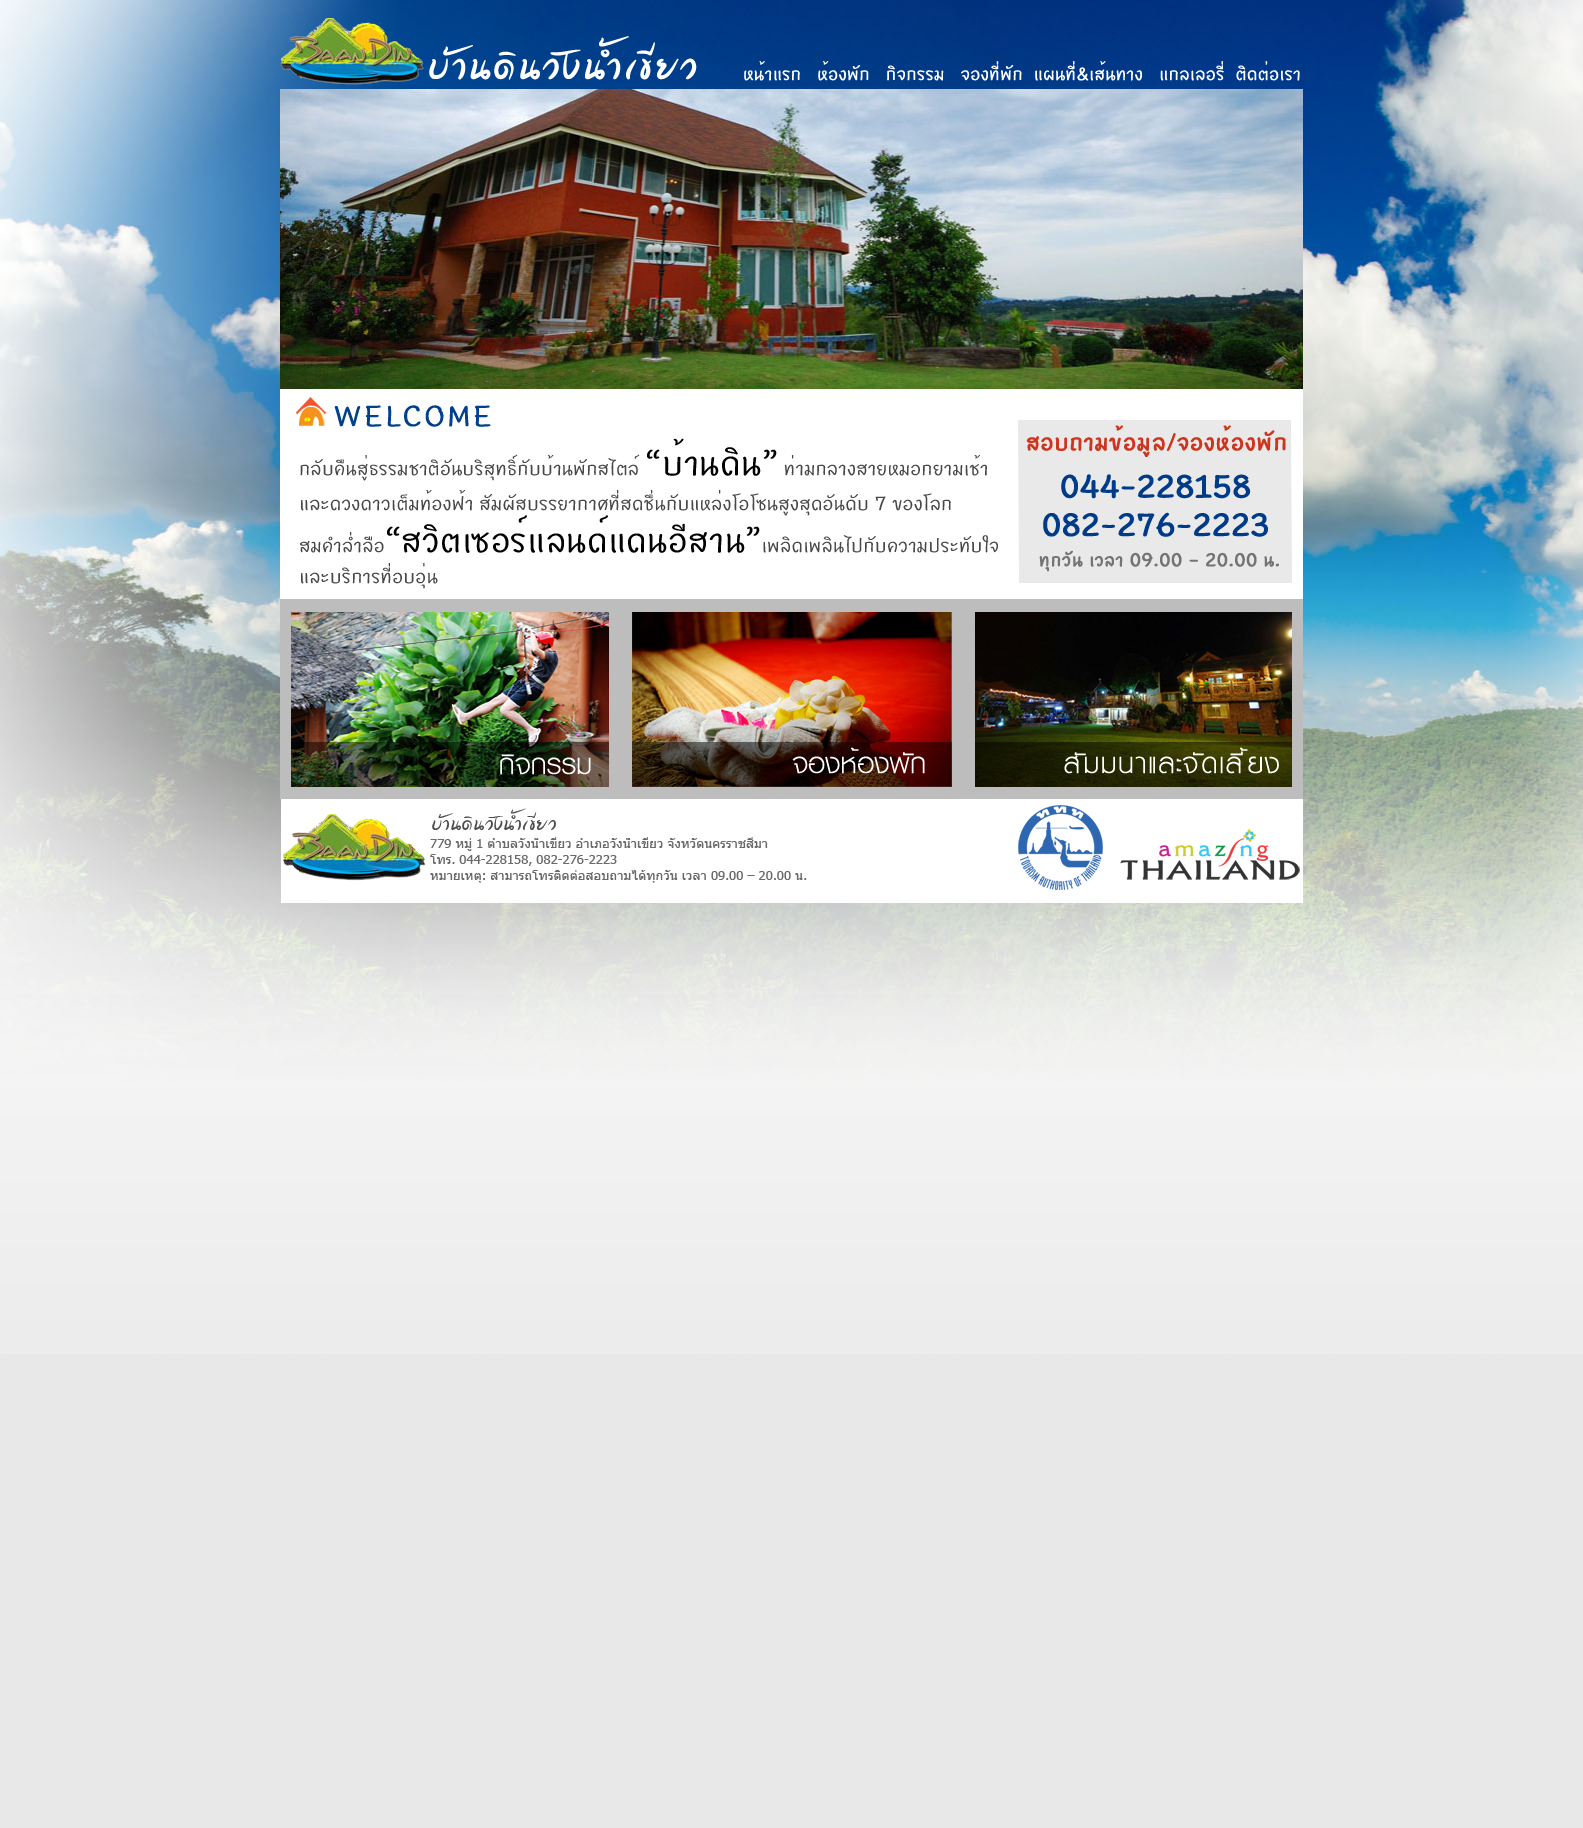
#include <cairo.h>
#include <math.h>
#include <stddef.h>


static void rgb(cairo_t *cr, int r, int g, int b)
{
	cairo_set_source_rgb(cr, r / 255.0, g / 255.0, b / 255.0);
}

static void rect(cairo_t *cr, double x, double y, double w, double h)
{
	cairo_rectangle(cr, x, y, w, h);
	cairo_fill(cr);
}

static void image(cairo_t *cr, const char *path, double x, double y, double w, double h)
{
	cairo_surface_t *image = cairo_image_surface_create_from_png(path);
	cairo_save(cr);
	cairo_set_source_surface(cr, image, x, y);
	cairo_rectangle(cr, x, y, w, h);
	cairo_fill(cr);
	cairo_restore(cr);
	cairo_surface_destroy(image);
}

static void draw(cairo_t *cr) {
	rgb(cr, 232, 232, 232);
	cairo_paint(cr);
	image(cr, "image0.png", 0, 0, 1583, 1354);
	image(cr, "image1.png", 281, 18, 416, 67);
	image(cr, "image2.png", 744, 61, 56, 20);
	image(cr, "image3.png", 818, 61, 51, 20);
	image(cr, "image4.png", 887, 65, 57, 16);
	image(cr, "image5.png", 961, 61, 61, 20);
	image(cr, "image6.png", 1035, 61, 107, 20);
	image(cr, "image7.png", 1160, 61, 64, 20);
	image(cr, "image8.png", 1236, 61, 64, 20);
	image(cr, "image9.png", 280, 89, 1023, 300);
	rgb(cr, 255, 255, 255);
	rect(cr, 280, 389, 1023, 210);
	image(cr, "image10.png", 296, 397, 195, 30);
	image(cr, "image11.png", 300, 438, 698, 151);
	image(cr, "image12.png", 1018, 420, 274, 163);
	rgb(cr, 189, 189, 189);
	rect(cr, 280, 599, 1023, 200);
	image(cr, "image13.png", 291, 612, 318, 175);
	image(cr, "image14.png", 632, 612, 320, 175);
	image(cr, "image15.png", 975, 612, 317, 175);
	image(cr, "image16.png", 281, 799, 1022, 104);
}

int main(void) {
	cairo_surface_t *surface = cairo_image_surface_create(CAIRO_FORMAT_RGB24, 1583, 1828);
	cairo_t *cr = cairo_create(surface);
	cairo_font_options_t *options = cairo_font_options_create();
	cairo_font_options_set_hint_metrics(options, CAIRO_HINT_METRICS_OFF);
	cairo_font_options_set_hint_style(options, CAIRO_HINT_STYLE_NONE);
	cairo_set_font_options(cr, options);
	cairo_set_miter_limit(cr, 4);
	draw(cr);
	cairo_surface_write_to_png(surface, "render.png");
	cairo_font_options_destroy(options);
	cairo_destroy(cr);
	cairo_surface_destroy(surface);
	return 0;
}
